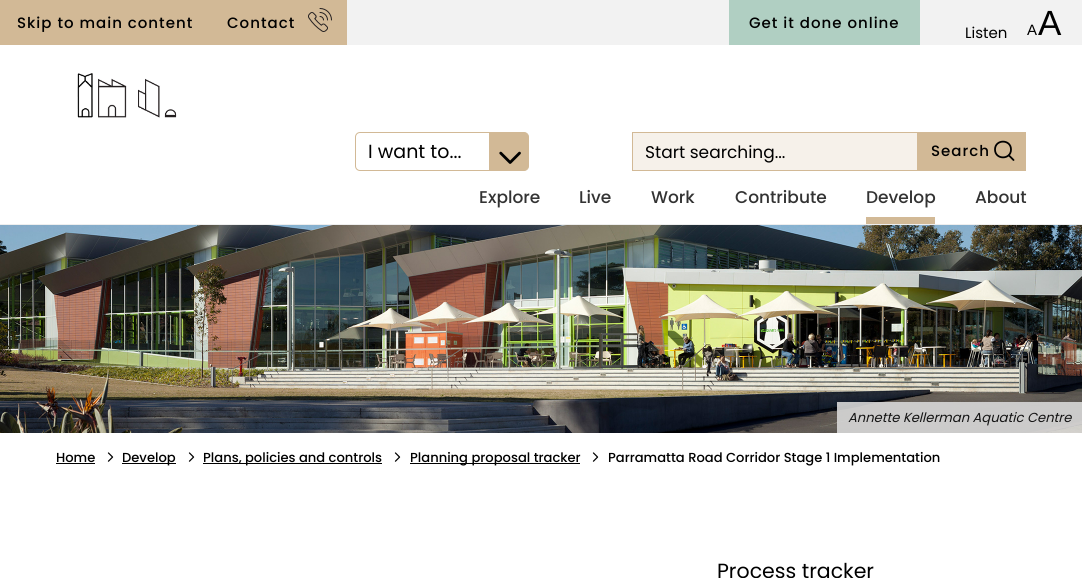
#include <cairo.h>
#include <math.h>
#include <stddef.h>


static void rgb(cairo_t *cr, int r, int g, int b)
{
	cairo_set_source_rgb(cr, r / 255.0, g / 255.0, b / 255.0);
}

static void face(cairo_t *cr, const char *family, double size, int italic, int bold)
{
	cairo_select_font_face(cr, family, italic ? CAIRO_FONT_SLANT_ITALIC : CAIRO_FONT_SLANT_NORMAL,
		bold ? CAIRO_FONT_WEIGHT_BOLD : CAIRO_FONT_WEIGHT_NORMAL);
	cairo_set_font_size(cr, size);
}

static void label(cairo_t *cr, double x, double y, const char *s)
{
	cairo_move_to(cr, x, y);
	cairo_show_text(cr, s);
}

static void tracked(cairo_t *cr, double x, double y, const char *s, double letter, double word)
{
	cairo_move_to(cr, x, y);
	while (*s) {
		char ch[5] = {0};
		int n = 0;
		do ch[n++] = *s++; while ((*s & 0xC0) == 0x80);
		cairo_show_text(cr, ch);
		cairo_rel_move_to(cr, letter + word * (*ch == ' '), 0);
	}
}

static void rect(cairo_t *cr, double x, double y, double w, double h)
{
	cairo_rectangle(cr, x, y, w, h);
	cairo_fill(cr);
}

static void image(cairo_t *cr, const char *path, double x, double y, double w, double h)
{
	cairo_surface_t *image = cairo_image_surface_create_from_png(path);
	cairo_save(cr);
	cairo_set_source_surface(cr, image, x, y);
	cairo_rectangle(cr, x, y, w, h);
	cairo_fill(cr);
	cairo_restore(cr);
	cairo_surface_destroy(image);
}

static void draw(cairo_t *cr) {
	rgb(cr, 255, 255, 255);
	cairo_paint(cr);
	rgb(cr, 238, 238, 238);
	rect(cr, 0, 224, 1082, 1);
	rgb(cr, 242, 242, 242);
	rect(cr, 347, 0, 735, 45);
	rgb(cr, 210, 185, 150);
	rect(cr, 0, 0, 347, 45);
	face(cr, "Poppins Medium", 15, 0, 0);
	rgb(cr, 0, 0, 0);
	tracked(cr, 17, 28, "Skip to main content", 1, 0);
	tracked(cr, 227, 28, "Contact", 1, 0);
	image(cr, "image0.png", 308, 8, 24, 24);
	rgb(cr, 176, 207, 194);
	rect(cr, 729, 0, 191, 45);
	rgb(cr, 0, 0, 0);
	tracked(cr, 749, 28, "Get it done online", 1, 0);
	face(cr, "Liberation Sans", 15, 0, 0);
	label(cr, 1027, 35, "A");
	face(cr, "Liberation Sans", 35, 0, 0);
	label(cr, 1038, 35, "A");
	face(cr, "Poppins", 15, 0, 0);
	label(cr, 965, 38, "Listen");
	image(cr, "image1.png", 77, 73, 100, 45);
	cairo_new_path(cr);
	cairo_move_to(cr, 360, 132.5);
	cairo_line_to(cr, 489.5, 132.5);
	cairo_line_to(cr, 489.5, 170.5);
	cairo_line_to(cr, 360, 170.5);
	cairo_curve_to(cr, 357.5, 170.5, 355.5, 168.5, 355.5, 166);
	cairo_line_to(cr, 355.5, 137);
	cairo_curve_to(cr, 355.5, 134.5, 357.5, 132.5, 360, 132.5);
	cairo_close_path(cr);
	rgb(cr, 210, 185, 150);
	cairo_set_line_width(cr, 1);
	cairo_stroke(cr);
	face(cr, "Poppins", 19, 0, 0);
	rgb(cr, 0, 0, 0);
	label(cr, 368, 158, "I want to...");
	rgb(cr, 210, 185, 150);
	cairo_new_path(cr);
	cairo_move_to(cr, 489.5, 132.5);
	cairo_line_to(cr, 524, 132.5);
	cairo_curve_to(cr, 526.5, 132.5, 528.5, 134.5, 528.5, 137);
	cairo_line_to(cr, 528.5, 166);
	cairo_curve_to(cr, 528.5, 168.5, 526.5, 170.5, 524, 170.5);
	cairo_line_to(cr, 489.5, 170.5);
	cairo_close_path(cr);
	cairo_fill_preserve(cr);
	cairo_stroke(cr);
	image(cr, "image2.png", 499, 151, 22, 13);
	rgb(cr, 246, 241, 234);
	cairo_rectangle(cr, 632.5, 132.5, 285, 38);
	cairo_fill_preserve(cr);
	rgb(cr, 210, 185, 150);
	cairo_stroke(cr);
	face(cr, "Poppins", 17, 0, 0);
	rgb(cr, 0, 0, 0);
	label(cr, 645, 158, "Start searching...");
	rgb(cr, 210, 185, 150);
	rect(cr, 918, 132, 108, 39);
	face(cr, "Poppins Medium", 15, 0, 0);
	rgb(cr, 0, 0, 0);
	tracked(cr, 931, 156, "Search", 1, 0);
	cairo_new_path(cr);
	cairo_move_to(cr, 1011, 149.5);
	cairo_curve_to(cr, 1011, 160, 995, 160, 995, 149.5);
	cairo_curve_to(cr, 995, 139, 1011, 139, 1011, 149.5);
	cairo_close_path(cr);
	cairo_set_line_width(cr, 1.8);
	cairo_stroke(cr);
	cairo_new_path(cr);
	cairo_move_to(cr, 1009, 155.5);
	cairo_line_to(cr, 1013.5, 160);
	cairo_set_line_cap(cr, CAIRO_LINE_CAP_ROUND);
	cairo_stroke(cr);
	face(cr, "Poppins Medium", 17, 0, 0);
	rgb(cr, 51, 51, 51);
	label(cr, 479, 203, "Explore");
	label(cr, 579, 203, "Live");
	label(cr, 651, 203, "Work");
	label(cr, 735, 203, "Contribute");
	label(cr, 866, 203, "Develop");
	rgb(cr, 210, 185, 150);
	rect(cr, 866, 217, 69, 7);
	rgb(cr, 51, 51, 51);
	label(cr, 975, 203, "About");
	image(cr, "image3.png", 0, 225, 1082, 208);
	cairo_set_source_rgba(cr, 0.843, 0.843, 0.843, 0.9);
	rect(cr, 837, 402, 245, 31);
	face(cr, "Poppins", 13.1, 1, 0);
	rgb(cr, 20, 20, 20);
	label(cr, 848, 422, "Annette Kellerman Aquatic Centre");
	face(cr, "Poppins Medium", 13.1, 0, 0);
	rgb(cr, 0, 0, 0);
	label(cr, 56, 462, "Home");
	rect(cr, 56, 463, 39, 1);
	image(cr, "image4.png", 107, 452, 7, 10);
	rect(cr, 122, 463, 54, 1);
	label(cr, 122, 462, "Develop");
	image(cr, "image4.png", 188, 452, 7, 10);
	rect(cr, 203, 463, 179, 1);
	label(cr, 203, 462, "Plans, policies and controls");
	image(cr, "image4.png", 394, 452, 7, 10);
	rect(cr, 410, 463, 170, 1);
	label(cr, 410, 462, "Planning proposal tracker");
	image(cr, "image4.png", 592, 452, 7, 10);
	label(cr, 608, 462, "Parramatta Road Corridor Stage 1 Implementation");
	face(cr, "Poppins", 20.5, 0, 0);
	label(cr, 717, 578, "Process tracker");
}

int main(void) {
	cairo_surface_t *surface = cairo_image_surface_create(CAIRO_FORMAT_RGB24, 1082, 578);
	cairo_t *cr = cairo_create(surface);
	cairo_font_options_t *options = cairo_font_options_create();
	cairo_font_options_set_hint_metrics(options, CAIRO_HINT_METRICS_OFF);
	cairo_font_options_set_hint_style(options, CAIRO_HINT_STYLE_NONE);
	cairo_set_font_options(cr, options);
	cairo_set_miter_limit(cr, 4);
	draw(cr);
	cairo_surface_write_to_png(surface, "render.png");
	cairo_font_options_destroy(options);
	cairo_destroy(cr);
	cairo_surface_destroy(surface);
	return 0;
}
